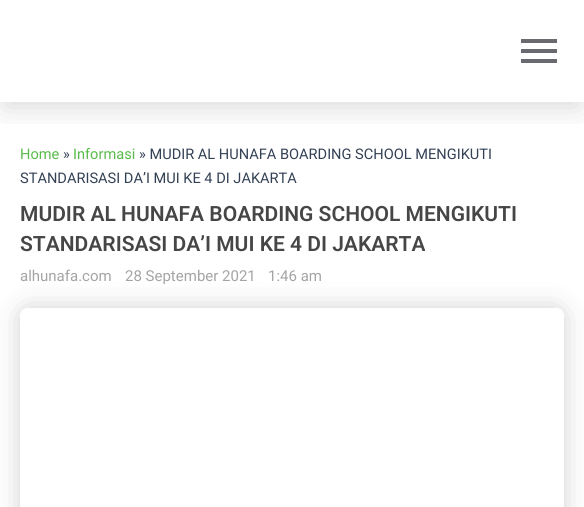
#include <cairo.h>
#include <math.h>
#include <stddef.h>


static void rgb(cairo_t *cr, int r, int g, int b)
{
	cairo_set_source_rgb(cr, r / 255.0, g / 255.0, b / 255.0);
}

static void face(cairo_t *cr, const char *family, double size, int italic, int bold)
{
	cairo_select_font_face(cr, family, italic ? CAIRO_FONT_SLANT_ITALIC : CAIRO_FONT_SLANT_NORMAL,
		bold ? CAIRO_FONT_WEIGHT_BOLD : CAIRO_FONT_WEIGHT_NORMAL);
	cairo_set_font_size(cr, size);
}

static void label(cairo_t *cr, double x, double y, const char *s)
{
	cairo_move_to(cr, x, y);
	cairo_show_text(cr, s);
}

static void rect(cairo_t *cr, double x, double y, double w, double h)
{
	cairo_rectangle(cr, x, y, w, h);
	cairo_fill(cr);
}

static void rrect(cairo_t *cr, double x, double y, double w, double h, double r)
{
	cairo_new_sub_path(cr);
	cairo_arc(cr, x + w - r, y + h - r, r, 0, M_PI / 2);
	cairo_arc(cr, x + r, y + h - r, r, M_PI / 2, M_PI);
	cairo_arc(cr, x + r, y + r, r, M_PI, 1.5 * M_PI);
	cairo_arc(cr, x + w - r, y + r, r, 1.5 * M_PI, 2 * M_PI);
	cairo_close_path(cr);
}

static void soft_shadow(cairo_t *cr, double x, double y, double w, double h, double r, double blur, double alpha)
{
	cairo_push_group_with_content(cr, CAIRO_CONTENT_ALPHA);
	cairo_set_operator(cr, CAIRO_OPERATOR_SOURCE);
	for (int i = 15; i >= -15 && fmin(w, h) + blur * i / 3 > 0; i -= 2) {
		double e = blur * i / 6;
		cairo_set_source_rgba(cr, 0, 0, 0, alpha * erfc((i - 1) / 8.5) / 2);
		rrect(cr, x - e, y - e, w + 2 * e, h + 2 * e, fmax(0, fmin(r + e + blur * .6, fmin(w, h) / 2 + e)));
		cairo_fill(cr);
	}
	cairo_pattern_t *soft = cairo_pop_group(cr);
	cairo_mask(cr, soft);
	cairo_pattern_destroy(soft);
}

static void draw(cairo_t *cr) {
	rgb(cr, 255, 255, 255);
	cairo_paint(cr);
	cairo_save(cr);
	cairo_rectangle(cr, 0, 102, 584, 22);
	cairo_clip(cr);
	rgb(cr, 0, 0, 0);
	soft_shadow(cr, 5, 15, 574, 92, 0, 15, 0.15);
	cairo_restore(cr);
	rgb(cr, 104, 106, 112);
	rect(cr, 521, 39, 36, 4);
	rect(cr, 521, 49, 36, 4);
	rect(cr, 521, 59, 36, 4);
	face(cr, "Roboto", 14.6, 0, 0);
	rgb(cr, 88, 186, 73);
	label(cr, 20, 159, "Home");
	rgb(cr, 51, 65, 85);
	label(cr, 63, 159, "»");
	rgb(cr, 88, 186, 73);
	label(cr, 73, 159, "Informasi");
	rgb(cr, 51, 65, 85);
	label(cr, 139, 159, "» MUDIR AL HUNAFA BOARDING SCHOOL MENGIKUTI");
	label(cr, 20, 183, "STANDARISASI DA’I MUI KE 4 DI JAKARTA");
	face(cr, "Roboto SemiBold", 21, 0, 0);
	rgb(cr, 70, 70, 70);
	label(cr, 20, 221, "MUDIR AL HUNAFA BOARDING SCHOOL MENGIKUTI");
	label(cr, 20, 251, "STANDARISASI DA’I MUI KE 4 DI JAKARTA");
	cairo_save(cr);
	cairo_set_fill_rule(cr, CAIRO_FILL_RULE_EVEN_ODD);
	cairo_new_path(cr);
	cairo_move_to(cr, 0, 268);
	cairo_line_to(cr, 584, 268);
	cairo_line_to(cr, 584, 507);
	cairo_line_to(cr, 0, 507);
	cairo_close_path(cr);
	cairo_move_to(cr, 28, 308);
	cairo_line_to(cr, 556, 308);
	cairo_curve_to(cr, 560.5, 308, 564, 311.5, 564, 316);
	cairo_line_to(cr, 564, 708);
	cairo_curve_to(cr, 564, 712.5, 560.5, 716, 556, 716);
	cairo_line_to(cr, 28, 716);
	cairo_curve_to(cr, 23.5, 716, 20, 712.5, 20, 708);
	cairo_line_to(cr, 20, 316);
	cairo_curve_to(cr, 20, 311.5, 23.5, 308, 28, 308);
	cairo_close_path(cr);
	cairo_clip(cr);
	rgb(cr, 0, 0, 0);
	soft_shadow(cr, 25, 313, 534, 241, 3, 14.5, 0.25);
	cairo_restore(cr);
	face(cr, "Roboto", 15, 0, 0);
	rgb(cr, 164, 164, 164);
	label(cr, 20, 281, "alhunafa.com");
	label(cr, 125, 281, "28 September 2021");
	label(cr, 268, 281, "1:46 am");
}

int main(void) {
	cairo_surface_t *surface = cairo_image_surface_create(CAIRO_FORMAT_RGB24, 584, 507);
	cairo_t *cr = cairo_create(surface);
	cairo_font_options_t *options = cairo_font_options_create();
	cairo_font_options_set_hint_metrics(options, CAIRO_HINT_METRICS_OFF);
	cairo_font_options_set_hint_style(options, CAIRO_HINT_STYLE_NONE);
	cairo_set_font_options(cr, options);
	cairo_set_miter_limit(cr, 4);
	draw(cr);
	cairo_surface_write_to_png(surface, "render.png");
	cairo_font_options_destroy(options);
	cairo_destroy(cr);
	cairo_surface_destroy(surface);
	return 0;
}
